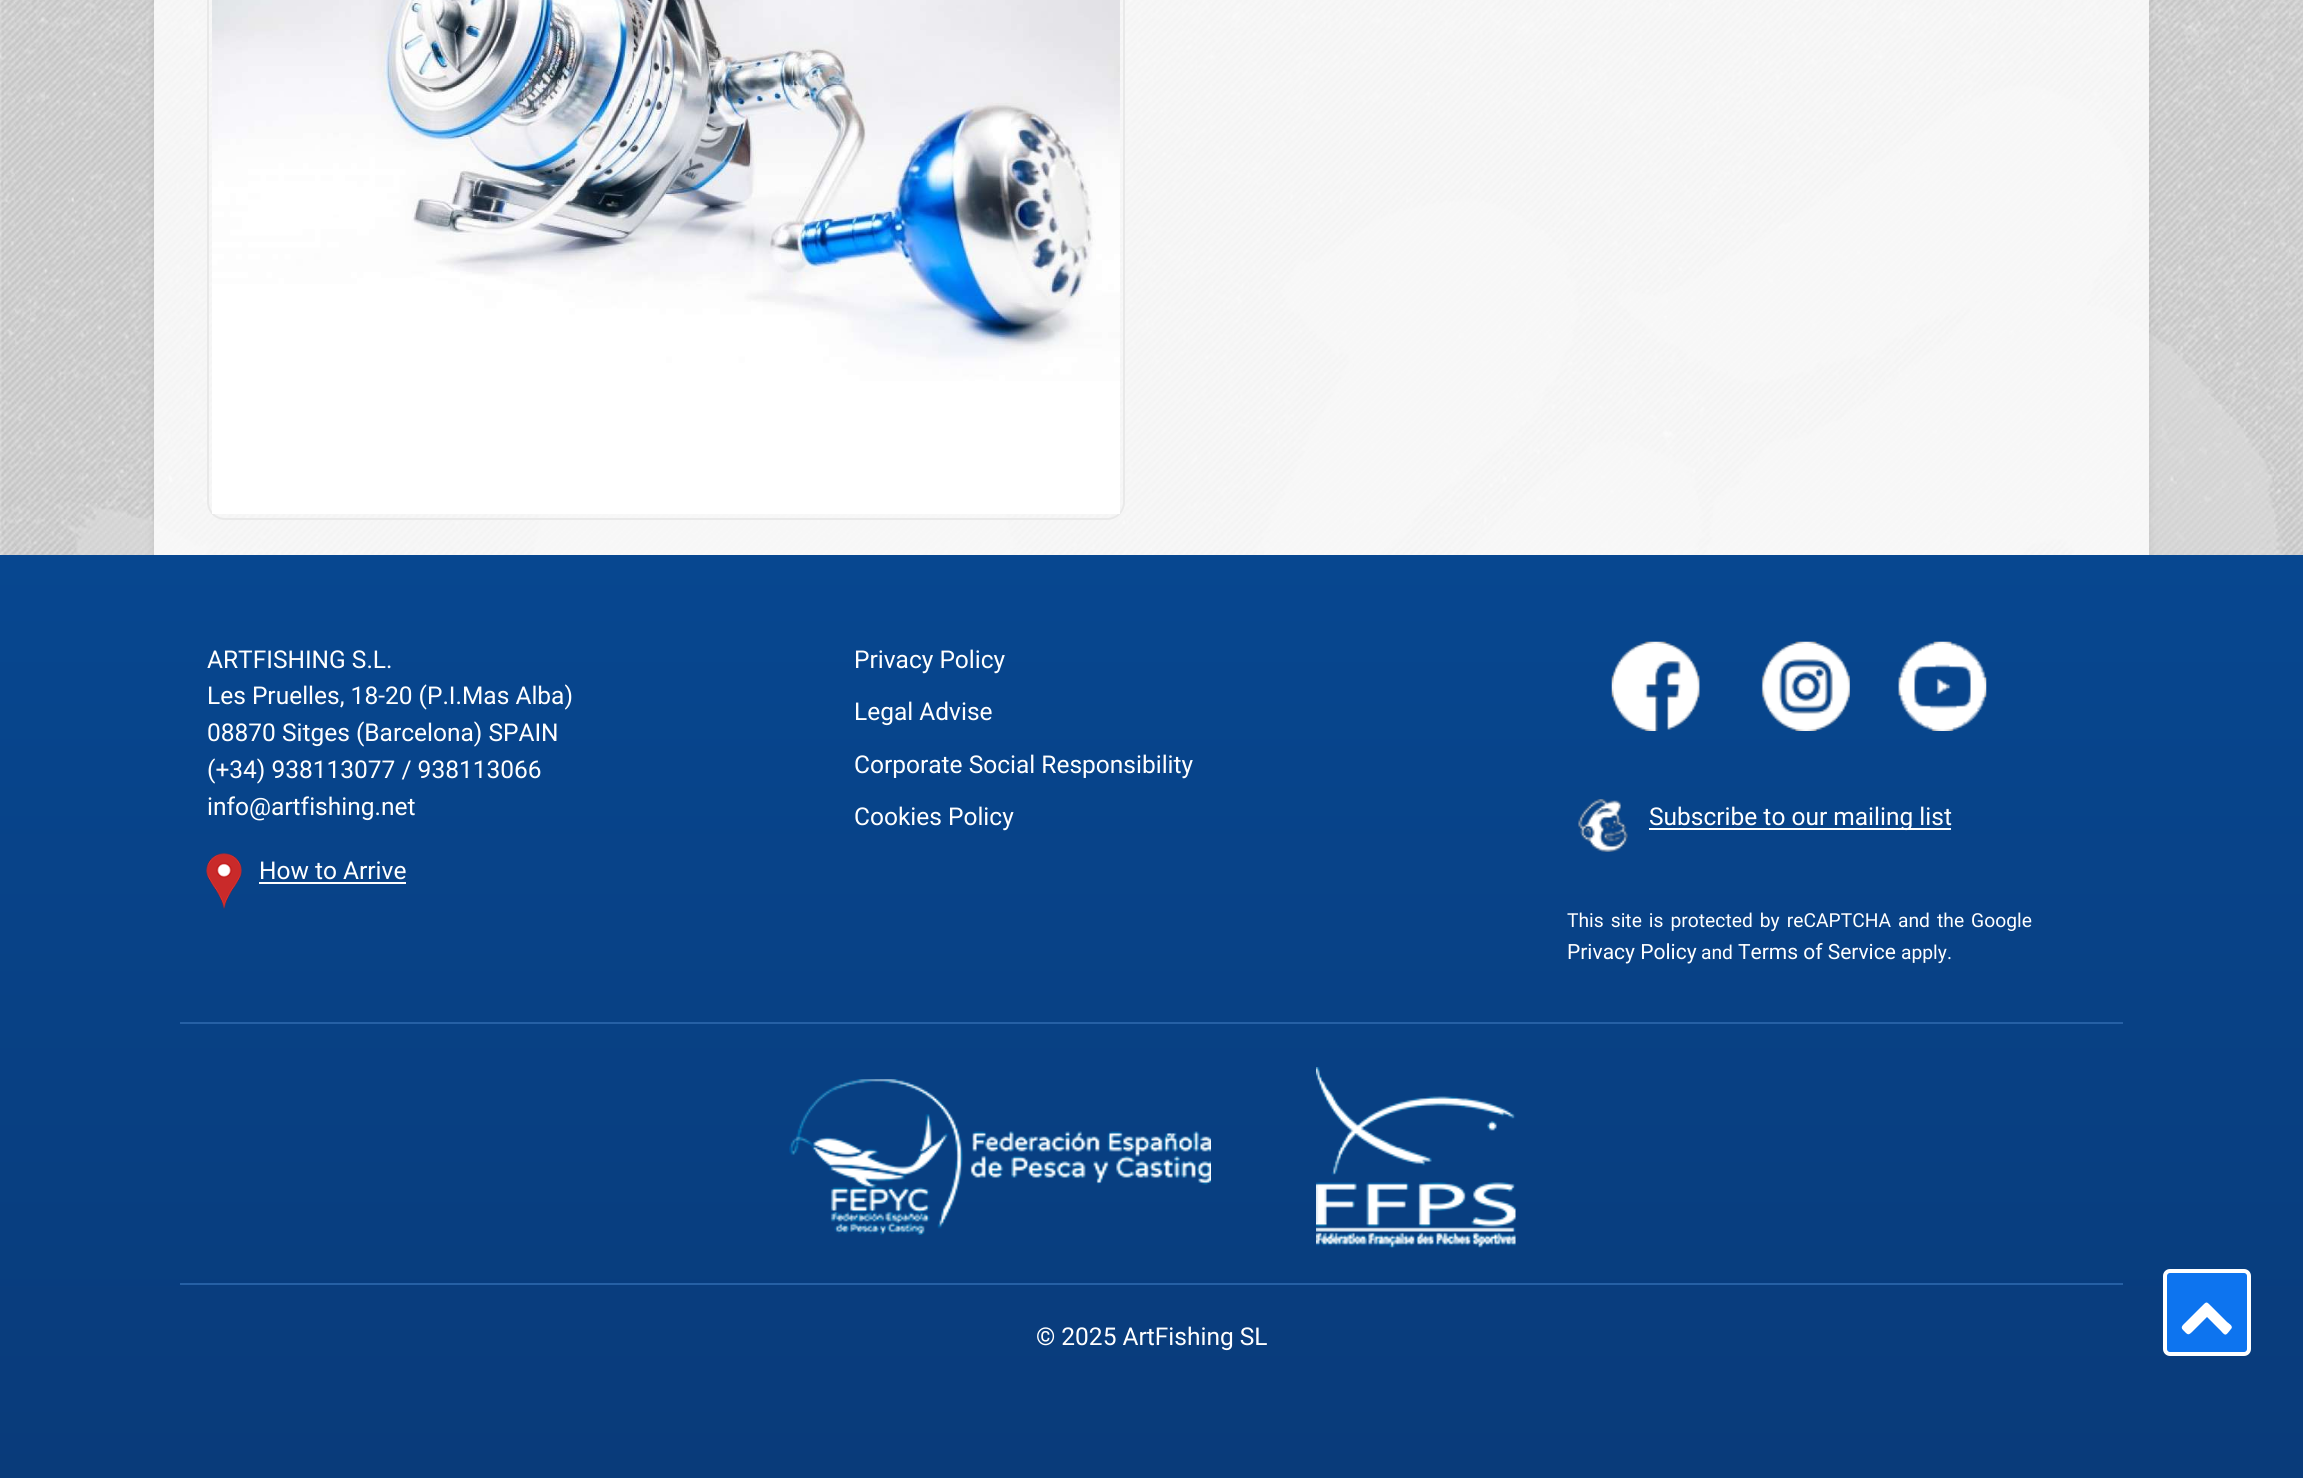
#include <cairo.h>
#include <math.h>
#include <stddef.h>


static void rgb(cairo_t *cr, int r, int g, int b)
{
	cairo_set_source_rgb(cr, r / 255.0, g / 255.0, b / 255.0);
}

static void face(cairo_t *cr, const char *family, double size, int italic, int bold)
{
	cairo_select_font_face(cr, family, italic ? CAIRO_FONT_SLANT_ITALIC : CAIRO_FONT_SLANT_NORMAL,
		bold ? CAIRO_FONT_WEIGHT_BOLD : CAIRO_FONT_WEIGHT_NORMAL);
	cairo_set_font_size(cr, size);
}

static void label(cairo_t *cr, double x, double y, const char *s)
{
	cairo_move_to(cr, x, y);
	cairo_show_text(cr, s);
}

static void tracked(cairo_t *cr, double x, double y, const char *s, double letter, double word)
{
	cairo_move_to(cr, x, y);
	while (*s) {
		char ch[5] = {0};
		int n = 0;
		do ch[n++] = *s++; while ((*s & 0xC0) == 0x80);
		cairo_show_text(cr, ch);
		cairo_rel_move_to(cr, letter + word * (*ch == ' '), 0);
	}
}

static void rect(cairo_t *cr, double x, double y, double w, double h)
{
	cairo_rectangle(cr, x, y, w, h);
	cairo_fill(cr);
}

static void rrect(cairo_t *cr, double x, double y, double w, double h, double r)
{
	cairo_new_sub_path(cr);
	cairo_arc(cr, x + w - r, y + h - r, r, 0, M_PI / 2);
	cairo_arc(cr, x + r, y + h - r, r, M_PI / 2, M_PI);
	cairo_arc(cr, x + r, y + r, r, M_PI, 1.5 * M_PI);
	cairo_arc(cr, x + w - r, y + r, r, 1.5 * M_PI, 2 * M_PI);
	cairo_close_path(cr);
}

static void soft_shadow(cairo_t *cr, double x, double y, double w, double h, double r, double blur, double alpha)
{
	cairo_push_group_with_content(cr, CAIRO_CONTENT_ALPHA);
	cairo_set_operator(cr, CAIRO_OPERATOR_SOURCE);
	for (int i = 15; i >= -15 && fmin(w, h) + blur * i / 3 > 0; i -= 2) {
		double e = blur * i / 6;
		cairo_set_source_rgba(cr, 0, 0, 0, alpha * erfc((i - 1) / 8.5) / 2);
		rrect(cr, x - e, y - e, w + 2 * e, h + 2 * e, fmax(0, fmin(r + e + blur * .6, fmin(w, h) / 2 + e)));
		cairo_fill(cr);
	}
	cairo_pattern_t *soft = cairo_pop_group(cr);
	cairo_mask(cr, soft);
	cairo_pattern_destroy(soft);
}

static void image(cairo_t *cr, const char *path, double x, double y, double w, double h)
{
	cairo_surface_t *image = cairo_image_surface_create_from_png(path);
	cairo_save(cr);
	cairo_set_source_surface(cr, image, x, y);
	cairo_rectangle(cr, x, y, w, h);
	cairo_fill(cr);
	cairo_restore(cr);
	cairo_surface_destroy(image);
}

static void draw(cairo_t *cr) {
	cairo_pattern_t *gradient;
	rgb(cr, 255, 255, 255);
	cairo_paint(cr);
	image(cr, "image0.png", 0, 0, 2303, 555);
	cairo_save(cr);
	cairo_set_fill_rule(cr, CAIRO_FILL_RULE_EVEN_ODD);
	cairo_new_path(cr);
	cairo_move_to(cr, 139, 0);
	cairo_line_to(cr, 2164, 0);
	cairo_line_to(cr, 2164, 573);
	cairo_line_to(cr, 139, 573);
	cairo_close_path(cr);
	cairo_move_to(cr, 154, -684);
	cairo_line_to(cr, 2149, -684);
	cairo_line_to(cr, 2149, 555);
	cairo_line_to(cr, 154, 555);
	cairo_close_path(cr);
	cairo_clip(cr);
	rgb(cr, 136, 136, 136);
	soft_shadow(cr, 154, -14, 1995, 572, 0, 4.5, 0.25);
	cairo_restore(cr);
	cairo_set_source_rgba(cr, 1, 1, 1, 0.81);
	rect(cr, 154, 0, 1995, 555);
	rrect(cr, 208, -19, 916, 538, 17);
	rgb(cr, 233, 233, 233);
	cairo_stroke(cr);
	image(cr, "image1.png", 212, 0, 908, 514);
	gradient = cairo_pattern_create_linear(1152, 555, 1152, 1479);
	cairo_pattern_add_color_stop_rgba(gradient, 0, 0.027, 0.278, 0.565, 1);
	cairo_pattern_add_color_stop_rgba(gradient, 1, 0.035, 0.231, 0.478, 1);
	cairo_set_source(cr, gradient);
	cairo_pattern_destroy(gradient);
	rect(cr, 0, 555, 2303, 923);
	face(cr, "Roboto", 24.5, 0, 0);
	rgb(cr, 255, 255, 255);
	label(cr, 207, 668, "ARTFISHING S.L.");
	label(cr, 207, 704, "Les Pruelles, 18-20 (P.I.Mas Alba)");
	label(cr, 207, 741, "08870 Sitges (Barcelona) SPAIN");
	label(cr, 207, 778, "(+34) 938113077 / 938113066");
	label(cr, 207, 815, "info@artfishing.net");
	image(cr, "image2.png", 206, 853, 36, 57);
	label(cr, 259, 879, "How to Arrive");
	rect(cr, 259, 882, 147, 2);
	label(cr, 854, 668, "Privacy Policy");
	label(cr, 854, 720, "Legal Advise");
	label(cr, 854, 773, "Corporate Social Responsibility");
	label(cr, 854, 825, "Cookies Policy");
	image(cr, "image3.png", 1611, 641, 89, 90);
	image(cr, "image4.png", 1761, 641, 89, 90);
	image(cr, "image5.png", 1898, 641, 89, 90);
	image(cr, "image6.png", 1578, 799, 50, 53);
	rect(cr, 1649, 828, 302, 2);
	label(cr, 1649, 825, "Subscribe to our mailing list");
	face(cr, "Roboto", 19.25, 0, 0);
	tracked(cr, 1567, 927, "This site is protected by reCAPTCHA and the Google", 0, 2.25);
	face(cr, "Roboto", 21, 0, 0);
	label(cr, 1567, 959, "Privacy Policy");
	face(cr, "Roboto", 19.25, 0, 0);
	label(cr, 1701, 959, "and");
	face(cr, "Roboto", 21, 0, 0);
	label(cr, 1738, 959, "Terms of Service");
	face(cr, "Roboto", 19.25, 0, 0);
	label(cr, 1901, 959, "apply.");
	rgb(cr, 38, 96, 165);
	rect(cr, 180, 1022, 1943, 2);
	image(cr, "image7.png", 789, 1079, 422, 156);
	image(cr, "image8.png", 1316, 1067, 200, 181);
	rect(cr, 180, 1283, 1943, 2);
	face(cr, "Roboto", 24.5, 0, 0);
	rgb(cr, 255, 255, 255);
	label(cr, 1036, 1345, "© 2025 ArtFishing SL");
	rgb(cr, 13, 116, 239);
	rrect(cr, 2165, 1271, 84, 83, 5);
	cairo_fill_preserve(cr);
	rgb(cr, 255, 255, 255);
	cairo_set_line_width(cr, 4);
	cairo_stroke(cr);
	cairo_new_path(cr);
	cairo_move_to(cr, 2231, 1329);
	cairo_curve_to(cr, 2226, 1335, 2226, 1337, 2221, 1331);
	cairo_line_to(cr, 2207, 1317);
	cairo_line_to(cr, 2193, 1331);
	cairo_curve_to(cr, 2188, 1336, 2188, 1335, 2183, 1330);
	cairo_curve_to(cr, 2180, 1327, 2183, 1325, 2186, 1322);
	cairo_line_to(cr, 2201, 1307);
	cairo_curve_to(cr, 2207, 1301, 2206, 1301, 2212, 1307);
	cairo_line_to(cr, 2227, 1322);
	cairo_curve_to(cr, 2228, 1323, 2234, 1326, 2231, 1329);
	cairo_close_path(cr);
	cairo_fill(cr);
}

int main(void) {
	cairo_surface_t *surface = cairo_image_surface_create(CAIRO_FORMAT_RGB24, 2303, 1478);
	cairo_t *cr = cairo_create(surface);
	cairo_font_options_t *options = cairo_font_options_create();
	cairo_font_options_set_hint_metrics(options, CAIRO_HINT_METRICS_OFF);
	cairo_font_options_set_hint_style(options, CAIRO_HINT_STYLE_NONE);
	cairo_set_font_options(cr, options);
	cairo_set_miter_limit(cr, 4);
	draw(cr);
	cairo_surface_write_to_png(surface, "render.png");
	cairo_font_options_destroy(options);
	cairo_destroy(cr);
	cairo_surface_destroy(surface);
	return 0;
}
